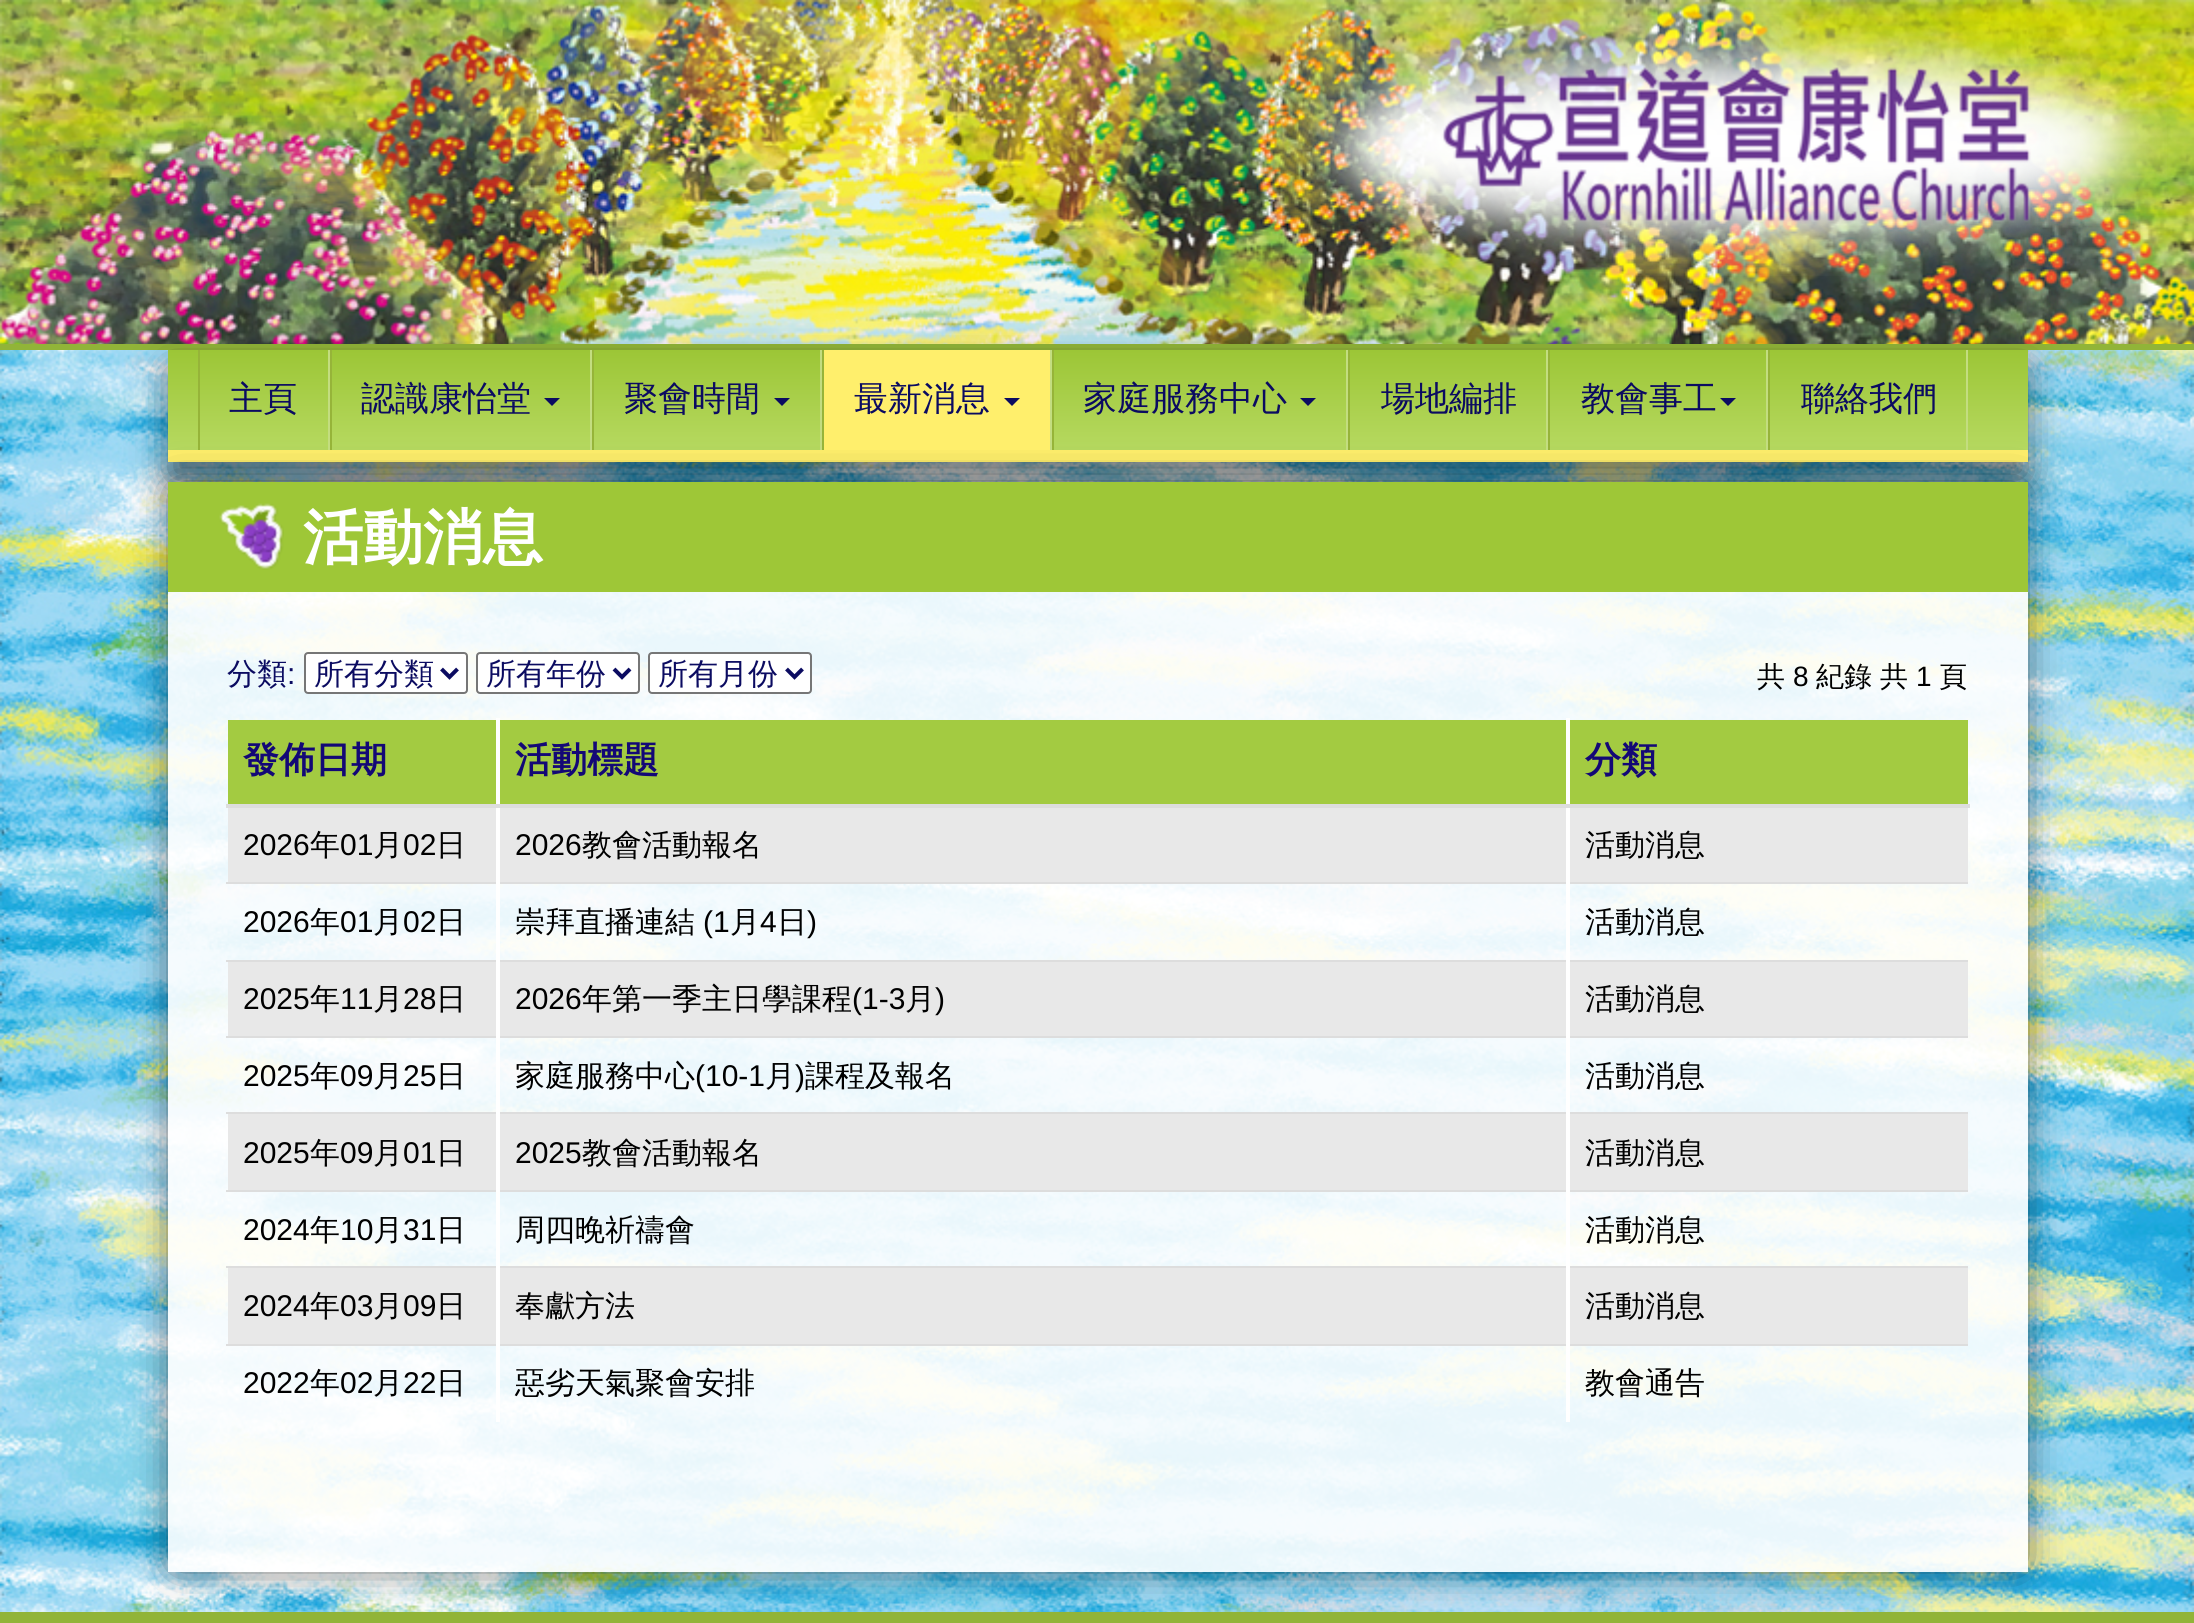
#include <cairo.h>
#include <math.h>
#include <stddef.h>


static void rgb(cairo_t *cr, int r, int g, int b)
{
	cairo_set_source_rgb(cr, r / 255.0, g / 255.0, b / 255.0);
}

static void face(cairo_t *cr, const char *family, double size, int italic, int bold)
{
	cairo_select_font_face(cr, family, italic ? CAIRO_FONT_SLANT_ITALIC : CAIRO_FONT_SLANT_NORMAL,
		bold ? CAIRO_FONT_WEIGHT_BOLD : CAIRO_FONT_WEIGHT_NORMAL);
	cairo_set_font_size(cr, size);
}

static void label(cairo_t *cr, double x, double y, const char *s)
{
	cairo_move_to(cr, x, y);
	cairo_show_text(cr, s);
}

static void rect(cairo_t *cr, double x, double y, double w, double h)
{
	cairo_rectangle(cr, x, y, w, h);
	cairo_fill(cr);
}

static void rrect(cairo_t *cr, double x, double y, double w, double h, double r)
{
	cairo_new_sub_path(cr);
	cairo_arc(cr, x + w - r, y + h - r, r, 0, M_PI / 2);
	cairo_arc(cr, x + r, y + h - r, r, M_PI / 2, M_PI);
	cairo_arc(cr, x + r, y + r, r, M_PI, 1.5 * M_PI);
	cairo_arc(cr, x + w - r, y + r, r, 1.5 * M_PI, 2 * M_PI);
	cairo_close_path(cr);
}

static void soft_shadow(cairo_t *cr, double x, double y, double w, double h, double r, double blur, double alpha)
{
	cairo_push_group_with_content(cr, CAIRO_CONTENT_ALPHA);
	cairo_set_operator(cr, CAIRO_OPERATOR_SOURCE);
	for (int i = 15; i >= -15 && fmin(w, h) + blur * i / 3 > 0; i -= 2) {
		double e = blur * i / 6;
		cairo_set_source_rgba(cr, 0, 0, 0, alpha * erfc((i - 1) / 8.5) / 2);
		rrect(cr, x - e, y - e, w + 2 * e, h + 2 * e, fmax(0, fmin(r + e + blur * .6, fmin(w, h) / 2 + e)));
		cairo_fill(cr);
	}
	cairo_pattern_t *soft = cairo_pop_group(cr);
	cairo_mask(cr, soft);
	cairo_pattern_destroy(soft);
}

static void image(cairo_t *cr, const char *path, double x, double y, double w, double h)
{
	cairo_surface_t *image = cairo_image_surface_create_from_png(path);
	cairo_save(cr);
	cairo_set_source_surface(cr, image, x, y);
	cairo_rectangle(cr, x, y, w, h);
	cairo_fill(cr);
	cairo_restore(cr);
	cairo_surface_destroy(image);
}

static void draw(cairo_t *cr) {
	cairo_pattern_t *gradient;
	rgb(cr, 255, 255, 255);
	cairo_paint(cr);
	image(cr, "image0.png", 0, 350, 2194, 1262);
	image(cr, "image1.png", 0, 0, 2194, 344);
	rgb(cr, 145, 180, 56);
	rect(cr, 0, 344, 2194, 6);
	image(cr, "image2.png", 1299, 15, 868, 261);
	rgb(cr, 0, 0, 0);
	soft_shadow(cr, 170, 370, 1856, 108, 0, 19, 0.55);
	gradient = cairo_pattern_create_linear(1098, 350, 1098, 450);
	cairo_pattern_add_color_stop_rgba(gradient, 0, 0.612, 0.776, 0.212, 1);
	cairo_pattern_add_color_stop_rgba(gradient, 1, 0.714, 0.851, 0.376, 1);
	cairo_set_source(cr, gradient);
	cairo_pattern_destroy(gradient);
	rect(cr, 168, 350, 1860, 100);
	rgb(cr, 255, 239, 108);
	rect(cr, 168, 450, 1860, 12);
	cairo_save(cr);
	cairo_set_fill_rule(cr, CAIRO_FILL_RULE_EVEN_ODD);
	cairo_new_path(cr);
	cairo_move_to(cr, 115, 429);
	cairo_line_to(cr, 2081, 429);
	cairo_line_to(cr, 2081, 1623);
	cairo_line_to(cr, 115, 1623);
	cairo_close_path(cr);
	cairo_move_to(cr, 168, 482);
	cairo_line_to(cr, 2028, 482);
	cairo_line_to(cr, 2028, 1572);
	cairo_line_to(cr, 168, 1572);
	cairo_close_path(cr);
	cairo_clip(cr);
	rgb(cr, 0, 0, 0);
	soft_shadow(cr, 176, 490, 1844, 1074, 0, 20, 0.75);
	cairo_restore(cr);
	rgb(cr, 195, 221, 128);
	rect(cr, 328, 350, 2, 100);
	rgb(cr, 150, 180, 57);
	rect(cr, 198, 350, 2, 100);
	face(cr, "WenQuanYi Zen Hei Medium", 34, 0, 0);
	rgb(cr, 11, 11, 97);
	label(cr, 229, 410, "主頁");
	rgb(cr, 195, 221, 128);
	rect(cr, 590, 350, 2, 100);
	rgb(cr, 150, 180, 57);
	rect(cr, 330, 350, 2, 100);
	rgb(cr, 11, 11, 97);
	label(cr, 361, 410, "認識康怡堂");
	cairo_new_path(cr);
	cairo_move_to(cr, 544, 398);
	cairo_line_to(cr, 560, 398);
	cairo_line_to(cr, 552, 406);
	cairo_close_path(cr);
	cairo_fill(cr);
	rgb(cr, 195, 221, 128);
	rect(cr, 820, 350, 2, 100);
	rgb(cr, 150, 180, 57);
	rect(cr, 592, 350, 2, 100);
	rgb(cr, 11, 11, 97);
	label(cr, 624, 410, "聚會時間");
	cairo_new_path(cr);
	cairo_move_to(cr, 774, 398);
	cairo_line_to(cr, 790, 398);
	cairo_line_to(cr, 782, 406);
	cairo_close_path(cr);
	cairo_fill(cr);
	rgb(cr, 255, 239, 108);
	rect(cr, 824, 350, 226, 100);
	rgb(cr, 195, 221, 128);
	rect(cr, 1050, 350, 2, 100);
	rgb(cr, 150, 180, 57);
	rect(cr, 822, 350, 2, 100);
	rgb(cr, 11, 11, 97);
	label(cr, 854, 410, "最新消息");
	cairo_new_path(cr);
	cairo_move_to(cr, 1004, 398);
	cairo_line_to(cr, 1020, 398);
	cairo_line_to(cr, 1012, 406);
	cairo_close_path(cr);
	cairo_fill(cr);
	rgb(cr, 195, 221, 128);
	rect(cr, 1346, 350, 2, 100);
	rgb(cr, 150, 180, 57);
	rect(cr, 1052, 350, 2, 100);
	rgb(cr, 11, 11, 97);
	label(cr, 1083, 410, "家庭服務中心");
	cairo_new_path(cr);
	cairo_move_to(cr, 1300, 398);
	cairo_line_to(cr, 1316, 398);
	cairo_line_to(cr, 1308, 406);
	cairo_close_path(cr);
	cairo_fill(cr);
	rgb(cr, 195, 221, 128);
	rect(cr, 1546, 350, 2, 100);
	rgb(cr, 150, 180, 57);
	rect(cr, 1348, 350, 2, 100);
	rgb(cr, 11, 11, 97);
	label(cr, 1381, 410, "場地編排");
	rgb(cr, 195, 221, 128);
	rect(cr, 1766, 350, 2, 100);
	rgb(cr, 150, 180, 57);
	rect(cr, 1548, 350, 2, 100);
	rgb(cr, 11, 11, 97);
	label(cr, 1581, 410, "教會事工");
	cairo_new_path(cr);
	cairo_move_to(cr, 1720, 398);
	cairo_line_to(cr, 1736, 398);
	cairo_line_to(cr, 1728, 406);
	cairo_close_path(cr);
	cairo_fill(cr);
	rgb(cr, 195, 221, 128);
	rect(cr, 1966, 350, 2, 100);
	rgb(cr, 150, 180, 57);
	rect(cr, 1768, 350, 2, 100);
	rgb(cr, 11, 11, 97);
	label(cr, 1801, 410, "聯絡我們");
	rgb(cr, 158, 199, 55);
	rect(cr, 168, 482, 1860, 110);
	image(cr, "image3.png", 219, 503, 65, 67);
	face(cr, "WenQuanYi Zen Hei", 60, 0, 1);
	rgb(cr, 255, 255, 255);
	label(cr, 303, 558, "活動消息");
	cairo_set_source_rgba(cr, 1, 1, 1, 0.9);
	rect(cr, 168, 592, 1860, 980);
	face(cr, "WenQuanYi Zen Hei Medium", 30, 0, 0);
	rgb(cr, 11, 11, 97);
	label(cr, 227, 684, "分類");
	face(cr, "Liberation Sans", 30, 0, 0);
	label(cr, 287, 684, ":");
	rgb(cr, 255, 255, 255);
	rrect(cr, 305, 653, 162, 40, 3);
	cairo_fill_preserve(cr);
	rgb(cr, 118, 118, 118);
	cairo_stroke(cr);
	cairo_new_path(cr);
	cairo_move_to(cr, 441.5, 669);
	cairo_line_to(cr, 449.5, 677);
	cairo_line_to(cr, 457.5, 669);
	rgb(cr, 11, 11, 97);
	cairo_set_line_width(cr, 4);
	cairo_stroke(cr);
	face(cr, "WenQuanYi Zen Hei Medium", 30, 0, 0);
	label(cr, 314, 684, "所有分類");
	rgb(cr, 255, 255, 255);
	rrect(cr, 477, 653, 162, 40, 3);
	cairo_fill_preserve(cr);
	rgb(cr, 118, 118, 118);
	cairo_set_line_width(cr, 2);
	cairo_stroke(cr);
	cairo_new_path(cr);
	cairo_move_to(cr, 614, 669);
	cairo_line_to(cr, 622, 677);
	cairo_line_to(cr, 630, 669);
	rgb(cr, 11, 11, 97);
	cairo_set_line_width(cr, 4);
	cairo_stroke(cr);
	label(cr, 486, 684, "所有年份");
	rgb(cr, 255, 255, 255);
	rrect(cr, 649, 653, 162, 40, 3);
	cairo_fill_preserve(cr);
	rgb(cr, 118, 118, 118);
	cairo_set_line_width(cr, 2);
	cairo_stroke(cr);
	cairo_new_path(cr);
	cairo_move_to(cr, 786.5, 669);
	cairo_line_to(cr, 794.5, 677);
	cairo_line_to(cr, 802.5, 669);
	rgb(cr, 11, 11, 97);
	cairo_set_line_width(cr, 4);
	cairo_stroke(cr);
	label(cr, 658, 684, "所有月份");
	face(cr, "WenQuanYi Zen Hei Medium", 28, 0, 0);
	rgb(cr, 0, 0, 0);
	label(cr, 1757, 686, "共");
	face(cr, "Liberation Sans", 28, 0, 0);
	label(cr, 1793, 686, "8");
	face(cr, "WenQuanYi Zen Hei Medium", 28, 0, 0);
	label(cr, 1816, 686, "紀錄");
	label(cr, 1880, 686, "共");
	face(cr, "Liberation Sans", 28, 0, 0);
	label(cr, 1916, 686, "1");
	face(cr, "WenQuanYi Zen Hei Medium", 28, 0, 0);
	label(cr, 1939, 686, "頁");
	rgb(cr, 163, 203, 65);
	rect(cr, 228, 720, 1740, 84);
	rgb(cr, 232, 232, 232);
	rect(cr, 228, 808, 1740, 74);
	rgb(cr, 221, 221, 221);
	rect(cr, 226, 882, 1742, 2);
	rgb(cr, 232, 232, 232);
	rect(cr, 228, 962, 1740, 74);
	rgb(cr, 221, 221, 221);
	rect(cr, 226, 960, 1742, 2);
	rect(cr, 226, 1036, 1742, 2);
	rgb(cr, 232, 232, 232);
	rect(cr, 228, 1114, 1740, 76);
	rgb(cr, 221, 221, 221);
	rect(cr, 226, 1112, 1742, 2);
	rect(cr, 226, 1190, 1742, 2);
	rgb(cr, 232, 232, 232);
	rect(cr, 228, 1268, 1740, 76);
	rgb(cr, 221, 221, 221);
	rect(cr, 226, 1266, 1742, 2);
	rect(cr, 226, 1344, 1742, 2);
	rgb(cr, 255, 255, 255);
	rect(cr, 1566, 804, 4, 618);
	rgb(cr, 221, 221, 221);
	rect(cr, 1566, 804, 404, 4);
	rgb(cr, 255, 255, 255);
	rect(cr, 1566, 718, 4, 90);
	rect(cr, 496, 804, 4, 618);
	rgb(cr, 221, 221, 221);
	rect(cr, 496, 804, 1074, 4);
	rgb(cr, 255, 255, 255);
	rect(cr, 496, 718, 4, 90);
	rgb(cr, 221, 221, 221);
	rect(cr, 226, 804, 274, 4);
	face(cr, "WenQuanYi Zen Hei", 36, 0, 1);
	rgb(cr, 19, 8, 118);
	label(cr, 243, 772, "發佈日期");
	label(cr, 515, 772, "活動標題");
	label(cr, 1585, 772, "分類");
	face(cr, "Liberation Sans", 30, 0, 0);
	rgb(cr, 0, 0, 0);
	label(cr, 243, 855, "2026");
	face(cr, "WenQuanYi Zen Hei Medium", 30, 0, 0);
	label(cr, 310, 855, "年");
	face(cr, "Liberation Sans", 30, 0, 0);
	label(cr, 340, 855, "01");
	face(cr, "WenQuanYi Zen Hei Medium", 30, 0, 0);
	label(cr, 373, 855, "月");
	face(cr, "Liberation Sans", 30, 0, 0);
	label(cr, 403, 855, "02");
	face(cr, "WenQuanYi Zen Hei Medium", 30, 0, 0);
	label(cr, 436, 855, "日");
	face(cr, "Liberation Sans", 30, 0, 0);
	label(cr, 515, 855, "2026");
	face(cr, "WenQuanYi Zen Hei Medium", 30, 0, 0);
	label(cr, 582, 855, "教會活動報名");
	label(cr, 1585, 855, "活動消息");
	face(cr, "Liberation Sans", 30, 0, 0);
	label(cr, 243, 932, "2026");
	face(cr, "WenQuanYi Zen Hei Medium", 30, 0, 0);
	label(cr, 310, 932, "年");
	face(cr, "Liberation Sans", 30, 0, 0);
	label(cr, 340, 932, "01");
	face(cr, "WenQuanYi Zen Hei Medium", 30, 0, 0);
	label(cr, 373, 932, "月");
	face(cr, "Liberation Sans", 30, 0, 0);
	label(cr, 403, 932, "02");
	face(cr, "WenQuanYi Zen Hei Medium", 30, 0, 0);
	label(cr, 436, 932, "日");
	label(cr, 515, 932, "崇拜直播連結");
	face(cr, "Liberation Sans", 30, 0, 0);
	label(cr, 703, 932, "(1");
	face(cr, "WenQuanYi Zen Hei Medium", 30, 0, 0);
	label(cr, 730, 932, "月");
	face(cr, "Liberation Sans", 30, 0, 0);
	label(cr, 760, 932, "4");
	face(cr, "WenQuanYi Zen Hei Medium", 30, 0, 0);
	label(cr, 777, 932, "日");
	face(cr, "Liberation Sans", 30, 0, 0);
	label(cr, 807, 932, ")");
	face(cr, "WenQuanYi Zen Hei Medium", 30, 0, 0);
	label(cr, 1585, 932, "活動消息");
	face(cr, "Liberation Sans", 30, 0, 0);
	label(cr, 243, 1009, "2025");
	face(cr, "WenQuanYi Zen Hei Medium", 30, 0, 0);
	label(cr, 310, 1009, "年");
	face(cr, "Liberation Sans", 30, 0, 0);
	label(cr, 340, 1009, "11");
	face(cr, "WenQuanYi Zen Hei Medium", 30, 0, 0);
	label(cr, 373, 1009, "月");
	face(cr, "Liberation Sans", 30, 0, 0);
	label(cr, 403, 1009, "28");
	face(cr, "WenQuanYi Zen Hei Medium", 30, 0, 0);
	label(cr, 436, 1009, "日");
	face(cr, "Liberation Sans", 30, 0, 0);
	label(cr, 515, 1009, "2026");
	face(cr, "WenQuanYi Zen Hei Medium", 30, 0, 0);
	label(cr, 582, 1009, "年第一季主日學課程");
	face(cr, "Liberation Sans", 30, 0, 0);
	label(cr, 852, 1009, "(1-3");
	face(cr, "WenQuanYi Zen Hei Medium", 30, 0, 0);
	label(cr, 905, 1009, "月");
	face(cr, "Liberation Sans", 30, 0, 0);
	label(cr, 935, 1009, ")");
	face(cr, "WenQuanYi Zen Hei Medium", 30, 0, 0);
	label(cr, 1585, 1009, "活動消息");
	face(cr, "Liberation Sans", 30, 0, 0);
	label(cr, 243, 1086, "2025");
	face(cr, "WenQuanYi Zen Hei Medium", 30, 0, 0);
	label(cr, 310, 1086, "年");
	face(cr, "Liberation Sans", 30, 0, 0);
	label(cr, 340, 1086, "09");
	face(cr, "WenQuanYi Zen Hei Medium", 30, 0, 0);
	label(cr, 373, 1086, "月");
	face(cr, "Liberation Sans", 30, 0, 0);
	label(cr, 403, 1086, "25");
	face(cr, "WenQuanYi Zen Hei Medium", 30, 0, 0);
	label(cr, 436, 1086, "日");
	label(cr, 515, 1086, "家庭服務中心");
	face(cr, "Liberation Sans", 30, 0, 0);
	label(cr, 695, 1086, "(10-1");
	face(cr, "WenQuanYi Zen Hei Medium", 30, 0, 0);
	label(cr, 765, 1086, "月");
	face(cr, "Liberation Sans", 30, 0, 0);
	label(cr, 795, 1086, ")");
	face(cr, "WenQuanYi Zen Hei Medium", 30, 0, 0);
	label(cr, 805, 1086, "課程及報名");
	label(cr, 1585, 1086, "活動消息");
	face(cr, "Liberation Sans", 30, 0, 0);
	label(cr, 243, 1163, "2025");
	face(cr, "WenQuanYi Zen Hei Medium", 30, 0, 0);
	label(cr, 310, 1163, "年");
	face(cr, "Liberation Sans", 30, 0, 0);
	label(cr, 340, 1163, "09");
	face(cr, "WenQuanYi Zen Hei Medium", 30, 0, 0);
	label(cr, 373, 1163, "月");
	face(cr, "Liberation Sans", 30, 0, 0);
	label(cr, 403, 1163, "01");
	face(cr, "WenQuanYi Zen Hei Medium", 30, 0, 0);
	label(cr, 436, 1163, "日");
	face(cr, "Liberation Sans", 30, 0, 0);
	label(cr, 515, 1163, "2025");
	face(cr, "WenQuanYi Zen Hei Medium", 30, 0, 0);
	label(cr, 582, 1163, "教會活動報名");
	label(cr, 1585, 1163, "活動消息");
	face(cr, "Liberation Sans", 30, 0, 0);
	label(cr, 243, 1240, "2024");
	face(cr, "WenQuanYi Zen Hei Medium", 30, 0, 0);
	label(cr, 310, 1240, "年");
	face(cr, "Liberation Sans", 30, 0, 0);
	label(cr, 340, 1240, "10");
	face(cr, "WenQuanYi Zen Hei Medium", 30, 0, 0);
	label(cr, 373, 1240, "月");
	face(cr, "Liberation Sans", 30, 0, 0);
	label(cr, 403, 1240, "31");
	face(cr, "WenQuanYi Zen Hei Medium", 30, 0, 0);
	label(cr, 436, 1240, "日");
	label(cr, 515, 1240, "周四晚祈禱會");
	label(cr, 1585, 1240, "活動消息");
	face(cr, "Liberation Sans", 30, 0, 0);
	label(cr, 243, 1316, "2024");
	face(cr, "WenQuanYi Zen Hei Medium", 30, 0, 0);
	label(cr, 310, 1316, "年");
	face(cr, "Liberation Sans", 30, 0, 0);
	label(cr, 340, 1316, "03");
	face(cr, "WenQuanYi Zen Hei Medium", 30, 0, 0);
	label(cr, 373, 1316, "月");
	face(cr, "Liberation Sans", 30, 0, 0);
	label(cr, 403, 1316, "09");
	face(cr, "WenQuanYi Zen Hei Medium", 30, 0, 0);
	label(cr, 436, 1316, "日");
	label(cr, 515, 1316, "奉獻方法");
	label(cr, 1585, 1316, "活動消息");
	face(cr, "Liberation Sans", 30, 0, 0);
	label(cr, 243, 1393, "2022");
	face(cr, "WenQuanYi Zen Hei Medium", 30, 0, 0);
	label(cr, 310, 1393, "年");
	face(cr, "Liberation Sans", 30, 0, 0);
	label(cr, 340, 1393, "02");
	face(cr, "WenQuanYi Zen Hei Medium", 30, 0, 0);
	label(cr, 373, 1393, "月");
	face(cr, "Liberation Sans", 30, 0, 0);
	label(cr, 403, 1393, "22");
	face(cr, "WenQuanYi Zen Hei Medium", 30, 0, 0);
	label(cr, 436, 1393, "日");
	label(cr, 515, 1393, "惡劣天氣聚會安排");
	label(cr, 1585, 1393, "教會通告");
	rgb(cr, 145, 180, 56);
	rect(cr, 0, 1612, 2194, 11);
}

int main(void) {
	cairo_surface_t *surface = cairo_image_surface_create(CAIRO_FORMAT_RGB24, 2194, 1623);
	cairo_t *cr = cairo_create(surface);
	cairo_font_options_t *options = cairo_font_options_create();
	cairo_font_options_set_hint_metrics(options, CAIRO_HINT_METRICS_OFF);
	cairo_font_options_set_hint_style(options, CAIRO_HINT_STYLE_NONE);
	cairo_set_font_options(cr, options);
	cairo_set_miter_limit(cr, 4);
	draw(cr);
	cairo_surface_write_to_png(surface, "render.png");
	cairo_font_options_destroy(options);
	cairo_destroy(cr);
	cairo_surface_destroy(surface);
	return 0;
}
